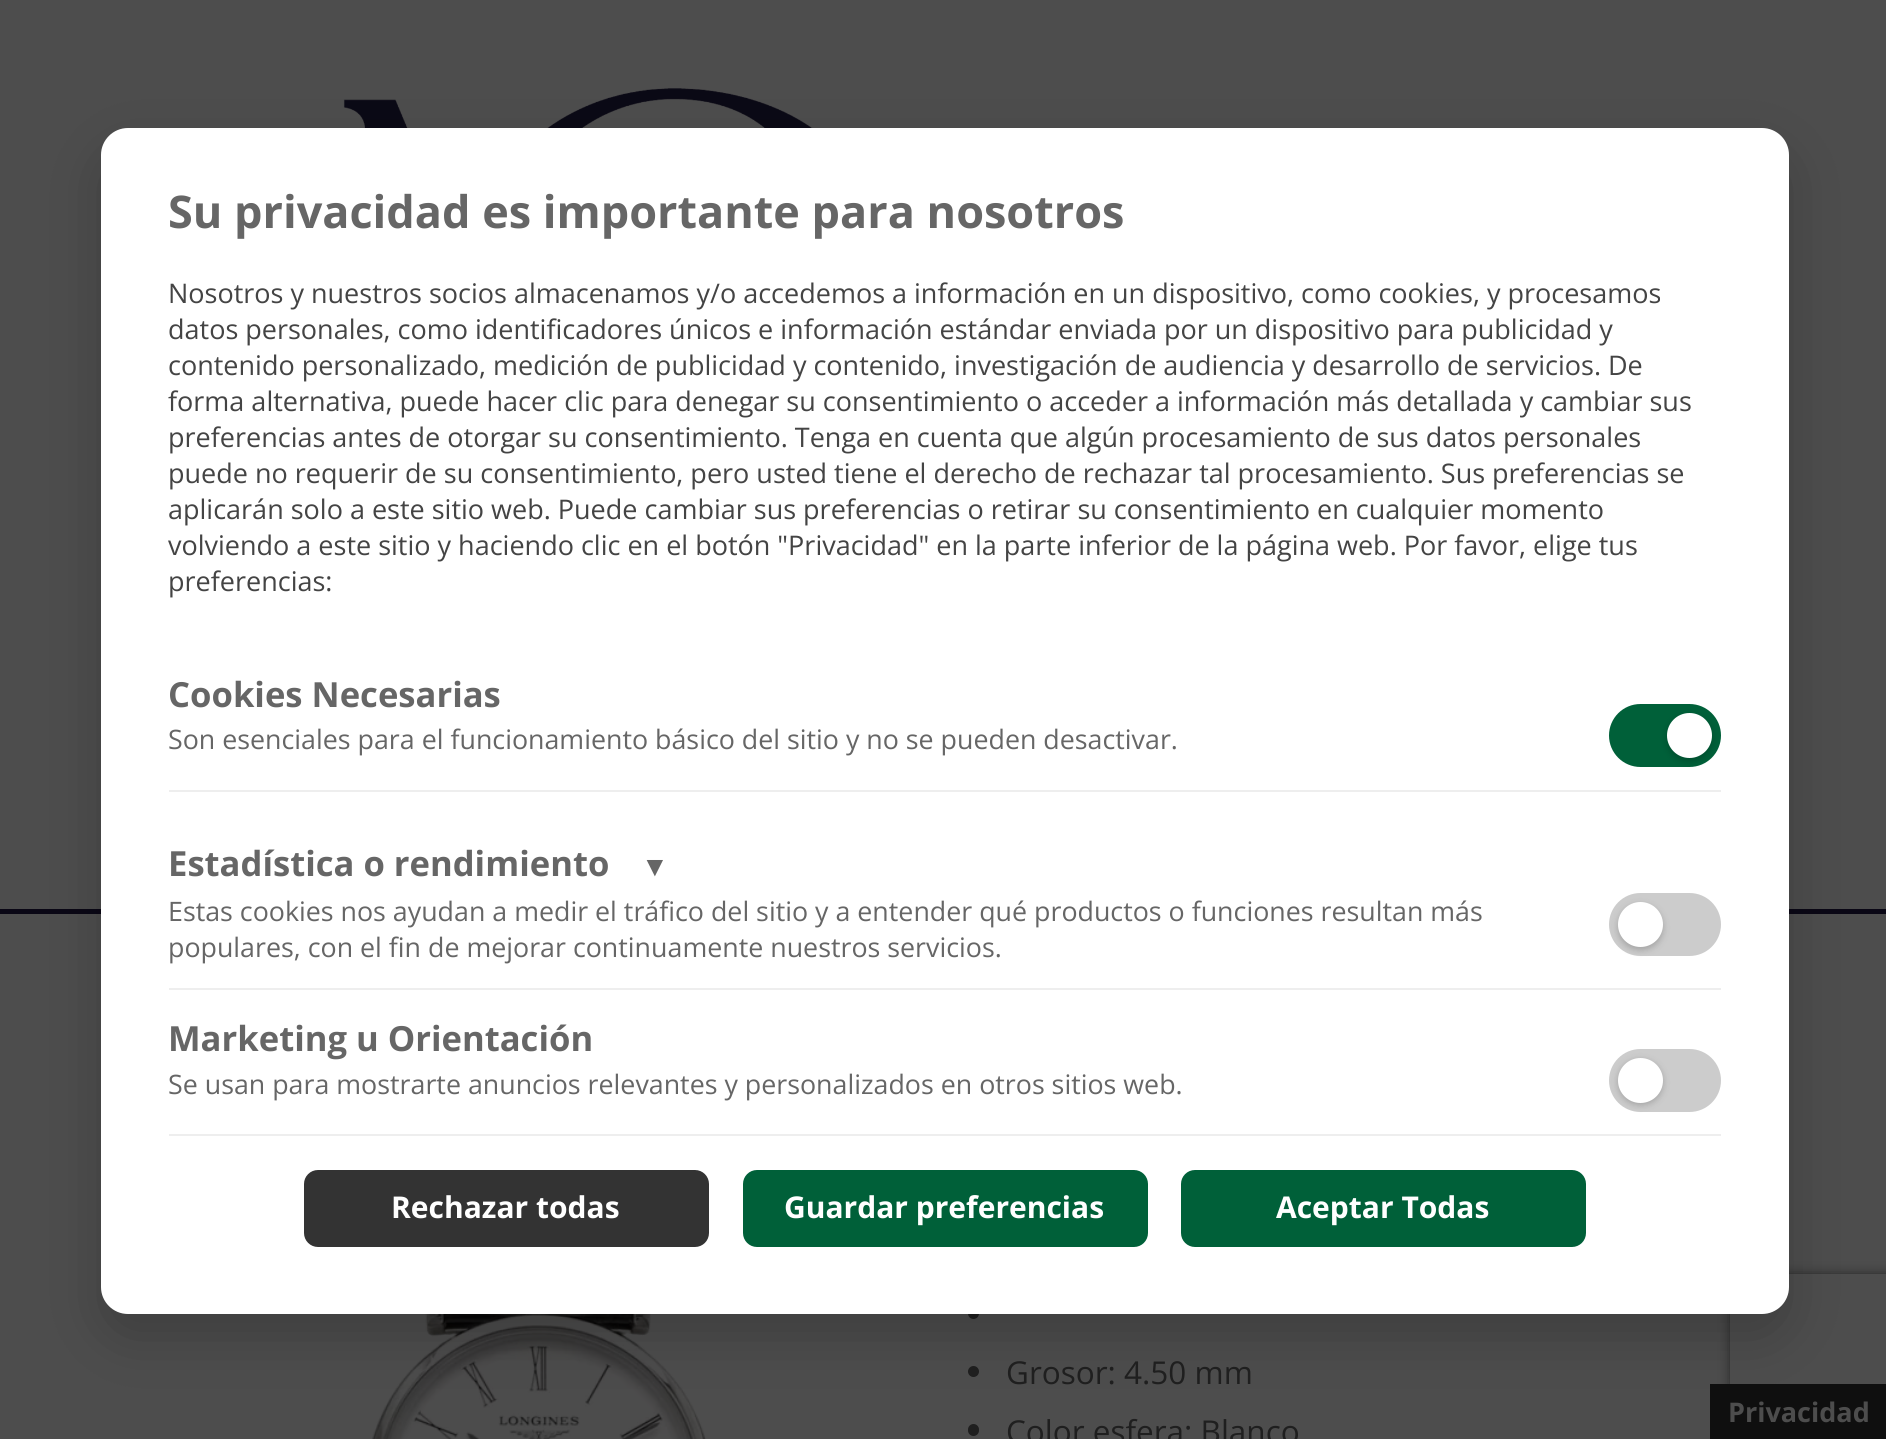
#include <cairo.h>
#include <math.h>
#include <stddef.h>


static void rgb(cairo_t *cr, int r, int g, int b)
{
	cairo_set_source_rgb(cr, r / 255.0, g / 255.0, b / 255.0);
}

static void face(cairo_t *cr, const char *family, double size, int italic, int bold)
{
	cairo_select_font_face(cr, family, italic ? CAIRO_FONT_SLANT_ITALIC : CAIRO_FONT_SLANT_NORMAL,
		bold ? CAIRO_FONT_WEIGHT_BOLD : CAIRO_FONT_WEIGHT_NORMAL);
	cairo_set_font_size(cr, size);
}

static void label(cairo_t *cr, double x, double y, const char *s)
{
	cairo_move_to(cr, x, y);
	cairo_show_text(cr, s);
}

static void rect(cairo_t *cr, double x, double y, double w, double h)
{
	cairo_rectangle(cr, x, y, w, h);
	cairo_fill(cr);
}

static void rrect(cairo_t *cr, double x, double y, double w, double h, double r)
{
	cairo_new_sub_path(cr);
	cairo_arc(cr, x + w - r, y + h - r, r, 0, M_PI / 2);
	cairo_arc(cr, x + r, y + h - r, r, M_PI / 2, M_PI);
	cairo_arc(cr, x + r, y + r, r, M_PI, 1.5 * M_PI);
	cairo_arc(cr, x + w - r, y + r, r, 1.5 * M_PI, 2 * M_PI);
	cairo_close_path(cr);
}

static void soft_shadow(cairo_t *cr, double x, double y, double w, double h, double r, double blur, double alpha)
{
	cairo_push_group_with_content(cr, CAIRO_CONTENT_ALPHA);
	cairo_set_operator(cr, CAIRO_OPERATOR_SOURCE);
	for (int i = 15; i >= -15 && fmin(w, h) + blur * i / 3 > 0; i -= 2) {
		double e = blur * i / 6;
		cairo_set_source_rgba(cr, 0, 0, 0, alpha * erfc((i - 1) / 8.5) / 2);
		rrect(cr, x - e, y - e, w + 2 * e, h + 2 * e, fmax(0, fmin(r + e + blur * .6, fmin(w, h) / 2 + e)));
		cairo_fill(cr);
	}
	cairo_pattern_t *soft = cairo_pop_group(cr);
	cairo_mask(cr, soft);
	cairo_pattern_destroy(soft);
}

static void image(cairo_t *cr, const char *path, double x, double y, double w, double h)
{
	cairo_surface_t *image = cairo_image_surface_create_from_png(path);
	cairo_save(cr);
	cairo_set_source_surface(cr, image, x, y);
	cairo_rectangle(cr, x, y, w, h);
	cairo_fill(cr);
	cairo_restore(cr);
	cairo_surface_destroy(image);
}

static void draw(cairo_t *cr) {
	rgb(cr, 77, 77, 77);
	cairo_paint(cr);
	rgb(cr, 10, 7, 21);
	rect(cr, 0, 909, 1886, 5);
	image(cr, "image0.png", 343, 88, 470, 40);
	image(cr, "image1.png", 372, 1314, 334, 125);
	rgb(cr, 31, 31, 31);
	rrect(cr, 968, 1307, 11, 12, 5.5);
	cairo_fill(cr);
	cairo_arc(cr, 973.5, 1371.5, 5.5, 0, 2 * M_PI);
	cairo_fill(cr);
	cairo_save(cr);
	cairo_set_fill_rule(cr, CAIRO_FILL_RULE_EVEN_ODD);
	cairo_new_path(cr);
	cairo_move_to(cr, 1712, 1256);
	cairo_line_to(cr, 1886, 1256);
	cairo_line_to(cr, 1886, 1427);
	cairo_line_to(cr, 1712, 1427);
	cairo_close_path(cr);
	cairo_move_to(cr, 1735, 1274);
	cairo_line_to(cr, 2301, 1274);
	cairo_curve_to(cr, 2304, 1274, 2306, 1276, 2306, 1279);
	cairo_line_to(cr, 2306, 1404);
	cairo_curve_to(cr, 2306, 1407, 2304, 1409, 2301, 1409);
	cairo_line_to(cr, 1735, 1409);
	cairo_curve_to(cr, 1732, 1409, 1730, 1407, 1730, 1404);
	cairo_line_to(cr, 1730, 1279);
	cairo_curve_to(cr, 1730, 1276, 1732, 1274, 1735, 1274);
	cairo_close_path(cr);
	cairo_clip(cr);
	rgb(cr, 38, 38, 38);
	soft_shadow(cr, 1730, 1274, 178, 135, 5, 5.5, 1);
	cairo_restore(cr);
	rgb(cr, 15, 15, 15);
	rect(cr, 1710, 1384, 176, 55);
	rgb(cr, 0, 0, 0);
	soft_shadow(cr, 101, 151, 1688, 1186, 27, 28, 0.2);
	rgb(cr, 255, 255, 255);
	rrect(cr, 101, 128, 1688, 1186, 27);
	cairo_fill(cr);
	face(cr, "Open Sans", 45, 0, 1);
	rgb(cr, 102, 102, 102);
	label(cr, 168, 228, "Su privacidad es importante para nosotros");
	face(cr, "Open Sans", 27, 0, 0);
	rgb(cr, 68, 68, 68);
	label(cr, 168, 303, "Nosotros y nuestros socios almacenamos y/o accedemos a información en un dispositivo, como cookies, y procesamos");
	label(cr, 168, 339, "datos personales, como identificadores únicos e información estándar enviada por un dispositivo para publicidad y");
	label(cr, 168, 375, "contenido personalizado, medición de publicidad y contenido, investigación de audiencia y desarrollo de servicios. De");
	label(cr, 168, 411, "forma alternativa, puede hacer clic para denegar su consentimiento o acceder a información más detallada y cambiar sus");
	label(cr, 168, 447, "preferencias antes de otorgar su consentimiento. Tenga en cuenta que algún procesamiento de sus datos personales");
	label(cr, 168, 483, "puede no requerir de su consentimiento, pero usted tiene el derecho de rechazar tal procesamiento. Sus preferencias se");
	label(cr, 168, 519, "aplicarán solo a este sitio web. Puede cambiar sus preferencias o retirar su consentimiento en cualquier momento");
	label(cr, 168, 555, "volviendo a este sitio y haciendo clic en el botón \"Privacidad\" en la parte inferior de la página web. Por favor, elige tus");
	label(cr, 168, 591, "preferencias:");
	rgb(cr, 238, 238, 238);
	rect(cr, 169, 790, 1552, 2);
	face(cr, "Open Sans", 34.6, 0, 1);
	rgb(cr, 102, 102, 102);
	label(cr, 168, 707, "Cookies Necesarias");
	face(cr, "Open Sans", 26.8, 0, 0);
	label(cr, 168, 749, "Son esenciales para el funcionamiento básico del sitio y no se pueden desactivar.");
	rgb(cr, 0, 96, 57);
	rrect(cr, 1609, 704, 112, 63, 31.5);
	cairo_fill(cr);
	rgb(cr, 0, 0, 0);
	soft_shadow(cr, 1667, 716, 45, 45, 22.5, 3.5, 0.2);
	rgb(cr, 255, 255, 255);
	cairo_arc(cr, 1689.5, 735.5, 22.5, 0, 2 * M_PI);
	cairo_fill(cr);
	face(cr, "Open Sans", 34.6, 0, 1);
	rgb(cr, 102, 102, 102);
	label(cr, 168, 876, "Estadística o rendimiento");
	face(cr, "Liberation Sans", 28, 0, 1);
	label(cr, 641, 876, "▼");
	face(cr, "Open Sans", 26.8, 0, 0);
	label(cr, 168, 921, "Estas cookies nos ayudan a medir el tráfico del sitio y a entender qué productos o funciones resultan más");
	label(cr, 168, 957, "populares, con el fin de mejorar continuamente nuestros servicios.");
	rgb(cr, 204, 204, 204);
	rrect(cr, 1609, 893, 112, 63, 31.5);
	cairo_fill(cr);
	rgb(cr, 0, 0, 0);
	soft_shadow(cr, 1618, 905, 45, 45, 22.5, 3.5, 0.2);
	rgb(cr, 255, 255, 255);
	cairo_arc(cr, 1640.5, 924.5, 22.5, 0, 2 * M_PI);
	cairo_fill(cr);
	rgb(cr, 238, 238, 238);
	rect(cr, 169, 988, 1552, 2);
	rect(cr, 169, 1134, 1552, 2);
	face(cr, "Open Sans", 34.6, 0, 1);
	rgb(cr, 102, 102, 102);
	label(cr, 168, 1051, "Marketing u Orientación");
	face(cr, "Open Sans", 26.8, 0, 0);
	label(cr, 168, 1094, "Se usan para mostrarte anuncios relevantes y personalizados en otros sitios web.");
	rgb(cr, 204, 204, 204);
	rrect(cr, 1609, 1049, 112, 63, 31.5);
	cairo_fill(cr);
	rgb(cr, 0, 0, 0);
	soft_shadow(cr, 1618, 1060, 45, 45, 22.5, 3.5, 0.2);
	rgb(cr, 255, 255, 255);
	cairo_arc(cr, 1640.5, 1080.5, 22.5, 0, 2 * M_PI);
	cairo_fill(cr);
	rgb(cr, 51, 51, 51);
	rrect(cr, 304, 1170, 405, 77, 14);
	cairo_fill(cr);
	face(cr, "Open Sans", 30, 0, 1);
	rgb(cr, 255, 255, 255);
	label(cr, 391, 1218, "Rechazar todas");
	rgb(cr, 0, 96, 57);
	rrect(cr, 743, 1170, 405, 77, 14);
	cairo_fill(cr);
	rgb(cr, 255, 255, 255);
	label(cr, 784, 1218, "Guardar preferencias");
	rgb(cr, 0, 96, 57);
	rrect(cr, 1181, 1170, 405, 77, 14);
	cairo_fill(cr);
	rgb(cr, 255, 255, 255);
	label(cr, 1276, 1218, "Aceptar Todas");
	face(cr, "Open Sans", 31.5, 0, 0);
	rgb(cr, 31, 31, 31);
	label(cr, 1006, 1384, "Grosor: 4.50 mm");
	rrect(cr, 968, 1424, 11, 12, 5.5);
	cairo_fill(cr);
	label(cr, 1006, 1443, "Color esfera: Blanco");
	face(cr, "Open Sans", 27, 0, 1);
	rgb(cr, 77, 77, 77);
	label(cr, 1728, 1422, "Privacidad");
}

int main(void) {
	cairo_surface_t *surface = cairo_image_surface_create(CAIRO_FORMAT_RGB24, 1886, 1439);
	cairo_t *cr = cairo_create(surface);
	cairo_font_options_t *options = cairo_font_options_create();
	cairo_font_options_set_hint_metrics(options, CAIRO_HINT_METRICS_OFF);
	cairo_font_options_set_hint_style(options, CAIRO_HINT_STYLE_NONE);
	cairo_set_font_options(cr, options);
	cairo_set_miter_limit(cr, 4);
	draw(cr);
	cairo_surface_write_to_png(surface, "render.png");
	cairo_font_options_destroy(options);
	cairo_destroy(cr);
	cairo_surface_destroy(surface);
	return 0;
}
